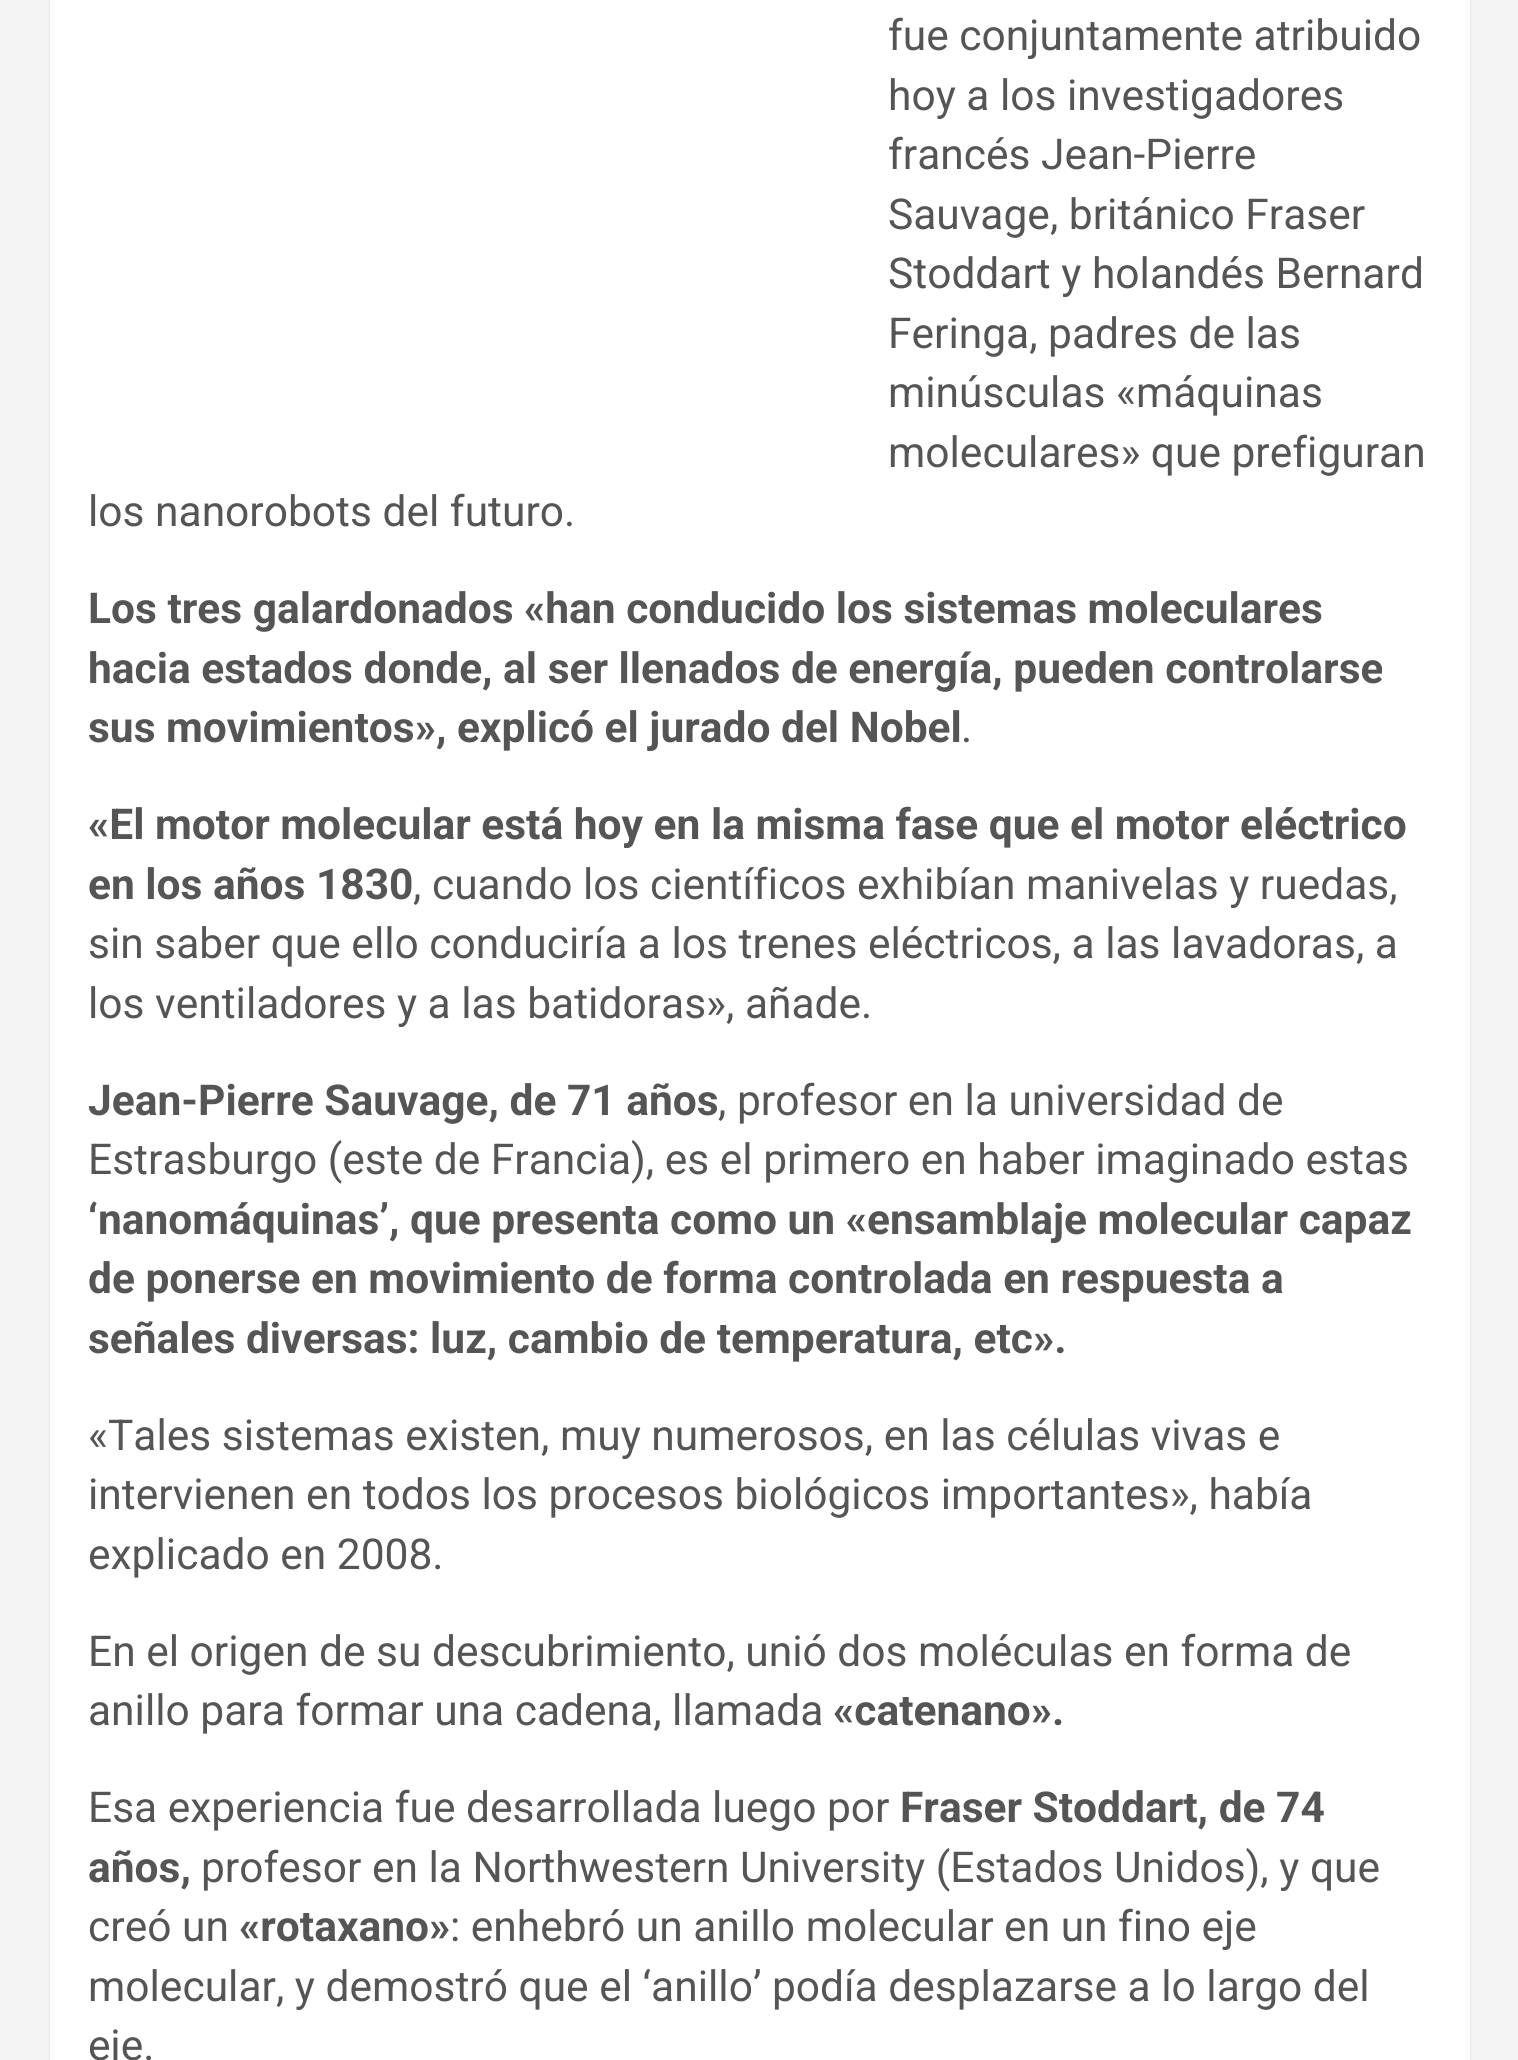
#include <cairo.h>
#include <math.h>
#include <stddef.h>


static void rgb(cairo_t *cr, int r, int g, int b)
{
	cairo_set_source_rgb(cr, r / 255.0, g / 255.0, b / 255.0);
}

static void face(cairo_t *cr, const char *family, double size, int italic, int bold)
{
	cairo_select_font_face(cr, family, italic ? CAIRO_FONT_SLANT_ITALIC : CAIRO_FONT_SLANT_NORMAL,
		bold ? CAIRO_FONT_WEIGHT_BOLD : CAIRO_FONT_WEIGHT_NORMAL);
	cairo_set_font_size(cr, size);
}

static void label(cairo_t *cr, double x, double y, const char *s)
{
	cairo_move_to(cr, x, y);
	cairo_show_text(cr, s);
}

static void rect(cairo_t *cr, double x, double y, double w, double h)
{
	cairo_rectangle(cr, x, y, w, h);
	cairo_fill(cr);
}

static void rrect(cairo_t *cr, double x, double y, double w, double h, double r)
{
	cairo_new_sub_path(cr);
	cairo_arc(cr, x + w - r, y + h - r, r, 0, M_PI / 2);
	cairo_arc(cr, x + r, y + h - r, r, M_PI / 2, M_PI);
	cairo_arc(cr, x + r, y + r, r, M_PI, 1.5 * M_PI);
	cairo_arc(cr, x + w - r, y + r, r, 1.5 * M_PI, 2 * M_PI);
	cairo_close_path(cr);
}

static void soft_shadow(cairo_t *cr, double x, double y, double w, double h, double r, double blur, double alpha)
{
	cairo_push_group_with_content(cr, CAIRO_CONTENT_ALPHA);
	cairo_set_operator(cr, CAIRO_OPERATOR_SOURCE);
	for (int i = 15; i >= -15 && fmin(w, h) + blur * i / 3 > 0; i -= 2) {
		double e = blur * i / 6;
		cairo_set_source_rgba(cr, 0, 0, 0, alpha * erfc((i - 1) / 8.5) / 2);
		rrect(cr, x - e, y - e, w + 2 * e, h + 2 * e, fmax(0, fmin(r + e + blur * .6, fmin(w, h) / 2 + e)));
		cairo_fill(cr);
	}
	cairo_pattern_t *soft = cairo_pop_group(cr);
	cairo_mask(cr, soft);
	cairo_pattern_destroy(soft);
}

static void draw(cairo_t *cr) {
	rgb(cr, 244, 244, 244);
	cairo_paint(cr);
	rgb(cr, 0, 0, 0);
	soft_shadow(cr, 50, -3, 1420, 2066, 0, 1, 0.1);
	rgb(cr, 255, 255, 255);
	rect(cr, 50, 0, 1420, 2060);
	face(cr, "Roboto", 42.5, 0, 0);
	rgb(cr, 85, 85, 85);
	label(cr, 888, 50, "fue conjuntamente atribuido");
	label(cr, 888, 110, "hoy a los investigadores");
	label(cr, 888, 169, "francés Jean-Pierre");
	label(cr, 888, 229, "Sauvage, británico Fraser");
	label(cr, 888, 288, "Stoddart y holandés Bernard");
	label(cr, 888, 348, "Feringa, padres de las");
	label(cr, 888, 407, "minúsculas «máquinas");
	label(cr, 888, 467, "moleculares» que prefiguran");
	label(cr, 88, 526, "los nanorobots del futuro.");
	face(cr, "Roboto", 42.5, 0, 1);
	label(cr, 88, 623, "Los tres galardonados «han conducido los sistemas moleculares");
	label(cr, 88, 683, "hacia estados donde, al ser llenados de energía, pueden controlarse");
	label(cr, 88, 742, "sus movimientos», explicó el jurado del Nobel");
	face(cr, "Roboto", 42.5, 0, 0);
	label(cr, 961, 742, ".");
	face(cr, "Roboto", 42.5, 0, 1);
	label(cr, 88, 839, "«El motor molecular está hoy en la misma fase que el motor eléctrico");
	label(cr, 88, 899, "en los años 1830");
	face(cr, "Roboto", 42.5, 0, 0);
	label(cr, 413, 899, ", cuando los científicos exhibían manivelas y ruedas,");
	label(cr, 88, 958, "sin saber que ello conduciría a los trenes eléctricos, a las lavadoras, a");
	label(cr, 88, 1018, "los ventiladores y a las batidoras», añade.");
	face(cr, "Roboto", 42.5, 0, 1);
	label(cr, 88, 1115, "Jean-Pierre Sauvage, de 71 años");
	face(cr, "Roboto", 42.5, 0, 0);
	label(cr, 718, 1115, ", profesor en la universidad de");
	label(cr, 88, 1174, "Estrasburgo (este de Francia), es el primero en haber imaginado estas");
	face(cr, "Roboto", 42.5, 0, 1);
	label(cr, 88, 1234, "‘nanomáquinas’, que presenta como un «ensamblaje molecular capaz");
	label(cr, 88, 1293, "de ponerse en movimiento de forma controlada en respuesta a");
	label(cr, 88, 1353, "señales diversas: luz, cambio de temperatura, etc».");
	face(cr, "Roboto", 42.5, 0, 0);
	label(cr, 88, 1450, "«Tales sistemas existen, muy numerosos, en las células vivas e");
	label(cr, 88, 1509, "intervienen en todos los procesos biológicos importantes», había");
	label(cr, 88, 1569, "explicado en 2008.");
	label(cr, 88, 1666, "En el origen de su descubrimiento, unió dos moléculas en forma de");
	label(cr, 88, 1725, "anillo para formar una cadena, llamada");
	face(cr, "Roboto", 42.5, 0, 1);
	label(cr, 833, 1725, "«catenano».");
	face(cr, "Roboto", 42.5, 0, 0);
	label(cr, 88, 1822, "Esa experiencia fue desarrollada luego por");
	face(cr, "Roboto", 42.5, 0, 1);
	label(cr, 900, 1822, "Fraser Stoddart, de 74");
	label(cr, 88, 1882, "años,");
	face(cr, "Roboto", 42.5, 0, 0);
	label(cr, 201, 1882, "profesor en la Northwestern University (Estados Unidos), y que");
	label(cr, 88, 1941, "creó un");
	face(cr, "Roboto", 42.5, 0, 1);
	label(cr, 239, 1941, "«rotaxano»");
	face(cr, "Roboto", 42.5, 0, 0);
	label(cr, 450, 1941, ": enhebró un anillo molecular en un fino eje");
	label(cr, 88, 2001, "molecular, y demostró que el ‘anillo’ podía desplazarse a lo largo del");
	label(cr, 88, 2060, "eje.");
}

int main(void) {
	cairo_surface_t *surface = cairo_image_surface_create(CAIRO_FORMAT_RGB24, 1518, 2060);
	cairo_t *cr = cairo_create(surface);
	cairo_font_options_t *options = cairo_font_options_create();
	cairo_font_options_set_hint_metrics(options, CAIRO_HINT_METRICS_OFF);
	cairo_font_options_set_hint_style(options, CAIRO_HINT_STYLE_NONE);
	cairo_set_font_options(cr, options);
	cairo_set_miter_limit(cr, 4);
	draw(cr);
	cairo_surface_write_to_png(surface, "render.png");
	cairo_font_options_destroy(options);
	cairo_destroy(cr);
	cairo_surface_destroy(surface);
	return 0;
}
